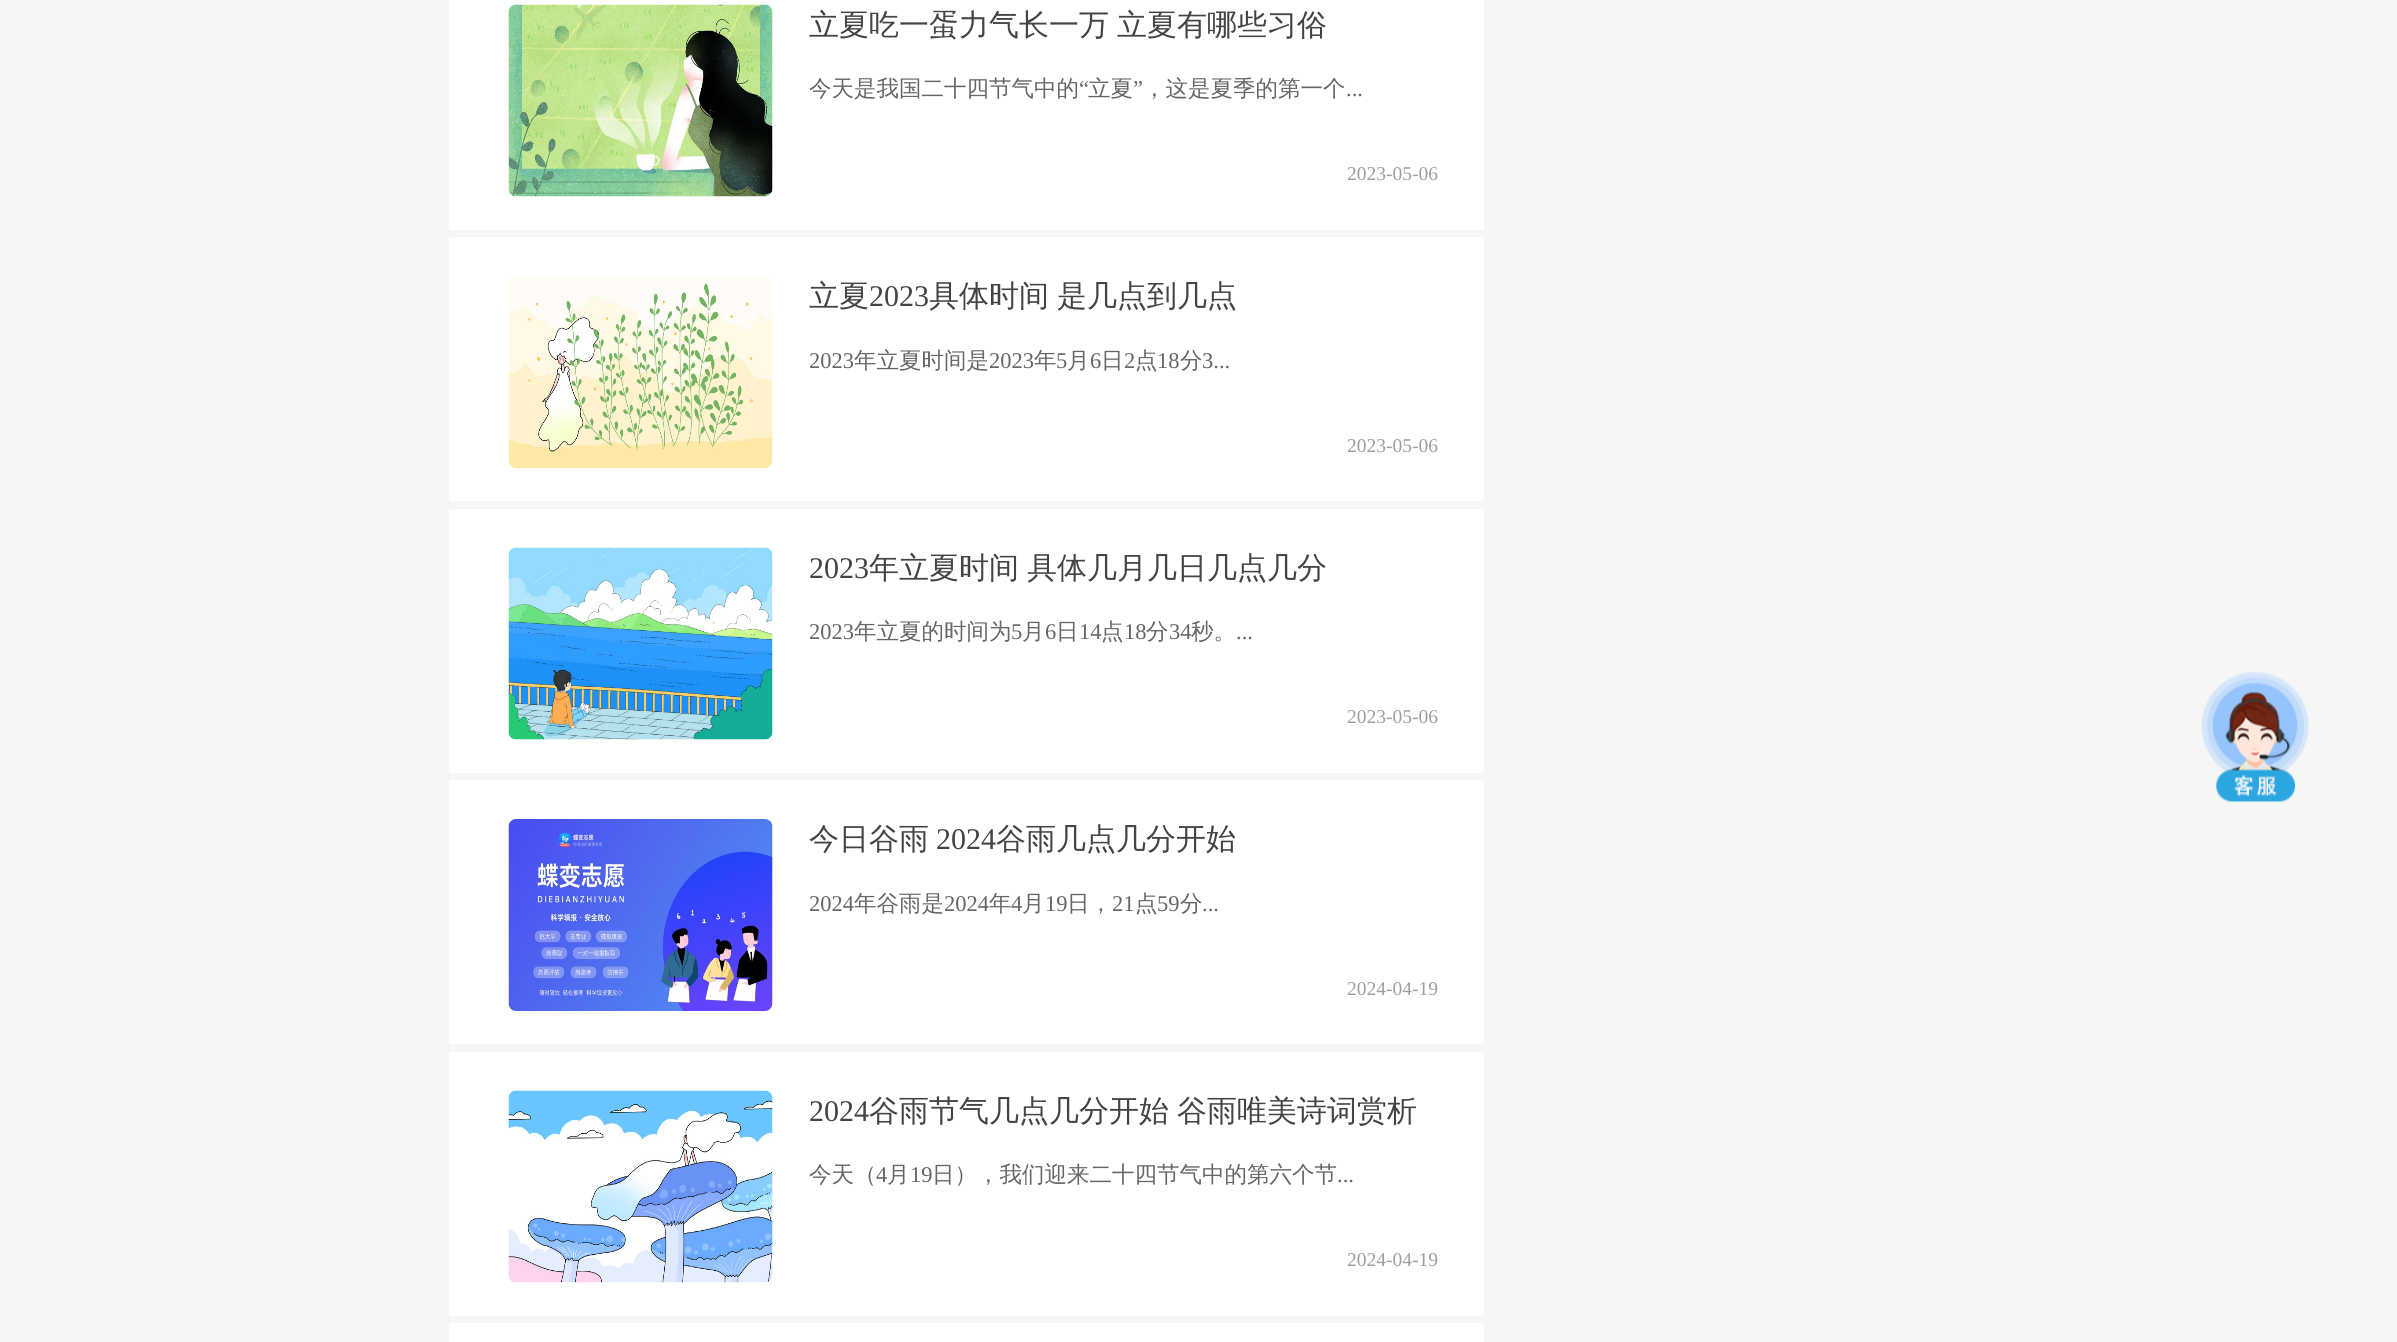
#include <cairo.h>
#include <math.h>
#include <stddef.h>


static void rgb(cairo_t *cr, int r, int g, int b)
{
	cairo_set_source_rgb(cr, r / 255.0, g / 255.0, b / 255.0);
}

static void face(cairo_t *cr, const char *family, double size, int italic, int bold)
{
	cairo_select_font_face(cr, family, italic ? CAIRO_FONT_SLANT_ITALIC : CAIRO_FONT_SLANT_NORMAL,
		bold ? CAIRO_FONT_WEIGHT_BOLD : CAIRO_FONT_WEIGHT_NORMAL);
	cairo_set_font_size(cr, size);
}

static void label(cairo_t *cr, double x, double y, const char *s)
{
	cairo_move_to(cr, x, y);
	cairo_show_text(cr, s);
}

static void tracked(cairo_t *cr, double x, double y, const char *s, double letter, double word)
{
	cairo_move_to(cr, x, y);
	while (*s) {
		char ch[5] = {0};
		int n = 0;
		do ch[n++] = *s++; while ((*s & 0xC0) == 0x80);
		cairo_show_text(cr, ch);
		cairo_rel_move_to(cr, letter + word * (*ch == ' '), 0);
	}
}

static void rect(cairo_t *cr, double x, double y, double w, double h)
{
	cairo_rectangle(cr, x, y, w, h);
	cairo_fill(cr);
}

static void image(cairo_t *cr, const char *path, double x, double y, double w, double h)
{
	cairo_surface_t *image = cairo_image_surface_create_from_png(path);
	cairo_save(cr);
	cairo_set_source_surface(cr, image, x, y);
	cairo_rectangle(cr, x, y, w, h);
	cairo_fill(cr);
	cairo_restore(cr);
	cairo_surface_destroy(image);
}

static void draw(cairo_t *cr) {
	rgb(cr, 246, 246, 246);
	cairo_paint(cr);
	rgb(cr, 255, 255, 255);
	rect(cr, 449, 0, 1035, 230);
	image(cr, "image0.png", 508, 4, 265, 193);
	face(cr, "WenQuanYi Zen Hei Medium", 30, 0, 0);
	rgb(cr, 68, 68, 68);
	tracked(cr, 809, 35, "立夏吃一蛋力气长一万 立夏有哪些习俗", 0, -1);
	face(cr, "WenQuanYi Zen Hei Medium", 22.5, 0, 0);
	rgb(cr, 102, 102, 102);
	label(cr, 809, 96, "今天是我国二十四节气中的");
	face(cr, "Liberation Serif", 22.5, 0, 0);
	label(cr, 1079, 96, "“");
	face(cr, "WenQuanYi Zen Hei Medium", 22.5, 0, 0);
	label(cr, 1088, 96, "立夏");
	face(cr, "Liberation Serif", 22.5, 0, 0);
	label(cr, 1133, 96, "”");
	face(cr, "WenQuanYi Zen Hei Medium", 22.5, 0, 0);
	label(cr, 1143, 96, "，这是夏季的第一个");
	face(cr, "Liberation Serif", 22.5, 0, 0);
	label(cr, 1346, 96, "...");
	face(cr, "Liberation Serif", 19.5, 0, 0);
	rgb(cr, 158, 158, 158);
	label(cr, 1347, 180, "2023-05-06");
	rgb(cr, 255, 255, 255);
	rect(cr, 449, 237, 1035, 264);
	image(cr, "image1.png", 508, 276, 265, 192);
	face(cr, "WenQuanYi Zen Hei Medium", 30, 0, 0);
	rgb(cr, 68, 68, 68);
	label(cr, 809, 306, "立夏");
	face(cr, "Liberation Serif", 30, 0, 0);
	label(cr, 869, 306, "2023");
	face(cr, "WenQuanYi Zen Hei Medium", 30, 0, 0);
	tracked(cr, 929, 306, "具体时间 是几点到几点", 0, -1);
	face(cr, "Liberation Serif", 22.5, 0, 0);
	rgb(cr, 102, 102, 102);
	label(cr, 809, 368, "2023");
	face(cr, "WenQuanYi Zen Hei Medium", 22.5, 0, 0);
	label(cr, 854, 368, "年立夏时间是");
	face(cr, "Liberation Serif", 22.5, 0, 0);
	label(cr, 989, 368, "2023");
	face(cr, "WenQuanYi Zen Hei Medium", 22.5, 0, 0);
	label(cr, 1034, 368, "年");
	face(cr, "Liberation Serif", 22.5, 0, 0);
	label(cr, 1056, 368, "5");
	face(cr, "WenQuanYi Zen Hei Medium", 22.5, 0, 0);
	label(cr, 1067, 368, "月");
	face(cr, "Liberation Serif", 22.5, 0, 0);
	label(cr, 1090, 368, "6");
	face(cr, "WenQuanYi Zen Hei Medium", 22.5, 0, 0);
	label(cr, 1101, 368, "日");
	face(cr, "Liberation Serif", 22.5, 0, 0);
	label(cr, 1124, 368, "2");
	face(cr, "WenQuanYi Zen Hei Medium", 22.5, 0, 0);
	label(cr, 1135, 368, "点");
	face(cr, "Liberation Serif", 22.5, 0, 0);
	label(cr, 1157, 368, "18");
	face(cr, "WenQuanYi Zen Hei Medium", 22.5, 0, 0);
	label(cr, 1180, 368, "分");
	face(cr, "Liberation Serif", 22.5, 0, 0);
	label(cr, 1202, 368, "3...");
	face(cr, "Liberation Serif", 19.5, 0, 0);
	rgb(cr, 158, 158, 158);
	label(cr, 1347, 452, "2023-05-06");
	rgb(cr, 255, 255, 255);
	rect(cr, 449, 509, 1035, 264);
	image(cr, "image2.png", 508, 547, 265, 193);
	face(cr, "Liberation Serif", 30, 0, 0);
	rgb(cr, 68, 68, 68);
	label(cr, 809, 578, "2023");
	face(cr, "WenQuanYi Zen Hei Medium", 30, 0, 0);
	tracked(cr, 869, 578, "年立夏时间 具体几月几日几点几分", 0, -1);
	face(cr, "Liberation Serif", 22.5, 0, 0);
	rgb(cr, 102, 102, 102);
	label(cr, 809, 639, "2023");
	face(cr, "WenQuanYi Zen Hei Medium", 22.5, 0, 0);
	label(cr, 854, 639, "年立夏的时间为");
	face(cr, "Liberation Serif", 22.5, 0, 0);
	label(cr, 1011, 639, "5");
	face(cr, "WenQuanYi Zen Hei Medium", 22.5, 0, 0);
	label(cr, 1022, 639, "月");
	face(cr, "Liberation Serif", 22.5, 0, 0);
	label(cr, 1045, 639, "6");
	face(cr, "WenQuanYi Zen Hei Medium", 22.5, 0, 0);
	label(cr, 1056, 639, "日");
	face(cr, "Liberation Serif", 22.5, 0, 0);
	label(cr, 1079, 639, "14");
	face(cr, "WenQuanYi Zen Hei Medium", 22.5, 0, 0);
	label(cr, 1101, 639, "点");
	face(cr, "Liberation Serif", 22.5, 0, 0);
	label(cr, 1124, 639, "18");
	face(cr, "WenQuanYi Zen Hei Medium", 22.5, 0, 0);
	label(cr, 1146, 639, "分");
	face(cr, "Liberation Serif", 22.5, 0, 0);
	label(cr, 1169, 639, "34");
	face(cr, "WenQuanYi Zen Hei Medium", 22.5, 0, 0);
	label(cr, 1191, 639, "秒。");
	face(cr, "Liberation Serif", 22.5, 0, 0);
	label(cr, 1236, 639, "...");
	face(cr, "Liberation Serif", 19.5, 0, 0);
	rgb(cr, 158, 158, 158);
	label(cr, 1347, 723, "2023-05-06");
	rgb(cr, 255, 255, 255);
	rect(cr, 449, 780, 1035, 264);
	image(cr, "image3.png", 508, 819, 265, 192);
	face(cr, "WenQuanYi Zen Hei Medium", 30, 0, 0);
	rgb(cr, 68, 68, 68);
	label(cr, 809, 849, "今日谷雨");
	face(cr, "Liberation Serif", 30, 0, 0);
	label(cr, 936, 849, "2024");
	face(cr, "WenQuanYi Zen Hei Medium", 30, 0, 0);
	label(cr, 996, 849, "谷雨几点几分开始");
	face(cr, "Liberation Serif", 22.5, 0, 0);
	rgb(cr, 102, 102, 102);
	label(cr, 809, 911, "2024");
	face(cr, "WenQuanYi Zen Hei Medium", 22.5, 0, 0);
	label(cr, 854, 911, "年谷雨是");
	face(cr, "Liberation Serif", 22.5, 0, 0);
	label(cr, 944, 911, "2024");
	face(cr, "WenQuanYi Zen Hei Medium", 22.5, 0, 0);
	label(cr, 989, 911, "年");
	face(cr, "Liberation Serif", 22.5, 0, 0);
	label(cr, 1011, 911, "4");
	face(cr, "WenQuanYi Zen Hei Medium", 22.5, 0, 0);
	label(cr, 1022, 911, "月");
	face(cr, "Liberation Serif", 22.5, 0, 0);
	label(cr, 1045, 911, "19");
	face(cr, "WenQuanYi Zen Hei Medium", 22.5, 0, 0);
	label(cr, 1067, 911, "日，");
	face(cr, "Liberation Serif", 22.5, 0, 0);
	label(cr, 1112, 911, "21");
	face(cr, "WenQuanYi Zen Hei Medium", 22.5, 0, 0);
	label(cr, 1135, 911, "点");
	face(cr, "Liberation Serif", 22.5, 0, 0);
	label(cr, 1157, 911, "59");
	face(cr, "WenQuanYi Zen Hei Medium", 22.5, 0, 0);
	label(cr, 1180, 911, "分");
	face(cr, "Liberation Serif", 22.5, 0, 0);
	label(cr, 1202, 911, "...");
	face(cr, "Liberation Serif", 19.5, 0, 0);
	rgb(cr, 158, 158, 158);
	label(cr, 1347, 995, "2024-04-19");
	rgb(cr, 255, 255, 255);
	rect(cr, 449, 1052, 1035, 264);
	image(cr, "image4.png", 508, 1090, 265, 193);
	face(cr, "Liberation Serif", 30, 0, 0);
	rgb(cr, 68, 68, 68);
	label(cr, 809, 1121, "2024");
	face(cr, "WenQuanYi Zen Hei Medium", 30, 0, 0);
	tracked(cr, 869, 1121, "谷雨节气几点几分开始 谷雨唯美诗词赏析", 0, -1);
	face(cr, "WenQuanYi Zen Hei Medium", 22.5, 0, 0);
	rgb(cr, 102, 102, 102);
	label(cr, 809, 1182, "今天（");
	face(cr, "Liberation Serif", 22.5, 0, 0);
	label(cr, 876, 1182, "4");
	face(cr, "WenQuanYi Zen Hei Medium", 22.5, 0, 0);
	label(cr, 887, 1182, "月");
	face(cr, "Liberation Serif", 22.5, 0, 0);
	label(cr, 910, 1182, "19");
	face(cr, "WenQuanYi Zen Hei Medium", 22.5, 0, 0);
	label(cr, 932, 1182, "日），我们迎来二十四节气中的第六个节");
	face(cr, "Liberation Serif", 22.5, 0, 0);
	label(cr, 1337, 1182, "...");
	face(cr, "Liberation Serif", 19.5, 0, 0);
	rgb(cr, 158, 158, 158);
	label(cr, 1347, 1266, "2024-04-19");
	rgb(cr, 255, 255, 255);
	rect(cr, 449, 1323, 1035, 19);
	image(cr, "image5.png", 2201, 671, 108, 132);
}

int main(void) {
	cairo_surface_t *surface = cairo_image_surface_create(CAIRO_FORMAT_RGB24, 2397, 1342);
	cairo_t *cr = cairo_create(surface);
	cairo_font_options_t *options = cairo_font_options_create();
	cairo_font_options_set_hint_metrics(options, CAIRO_HINT_METRICS_OFF);
	cairo_font_options_set_hint_style(options, CAIRO_HINT_STYLE_NONE);
	cairo_set_font_options(cr, options);
	cairo_set_miter_limit(cr, 4);
	draw(cr);
	cairo_surface_write_to_png(surface, "render.png");
	cairo_font_options_destroy(options);
	cairo_destroy(cr);
	cairo_surface_destroy(surface);
	return 0;
}
